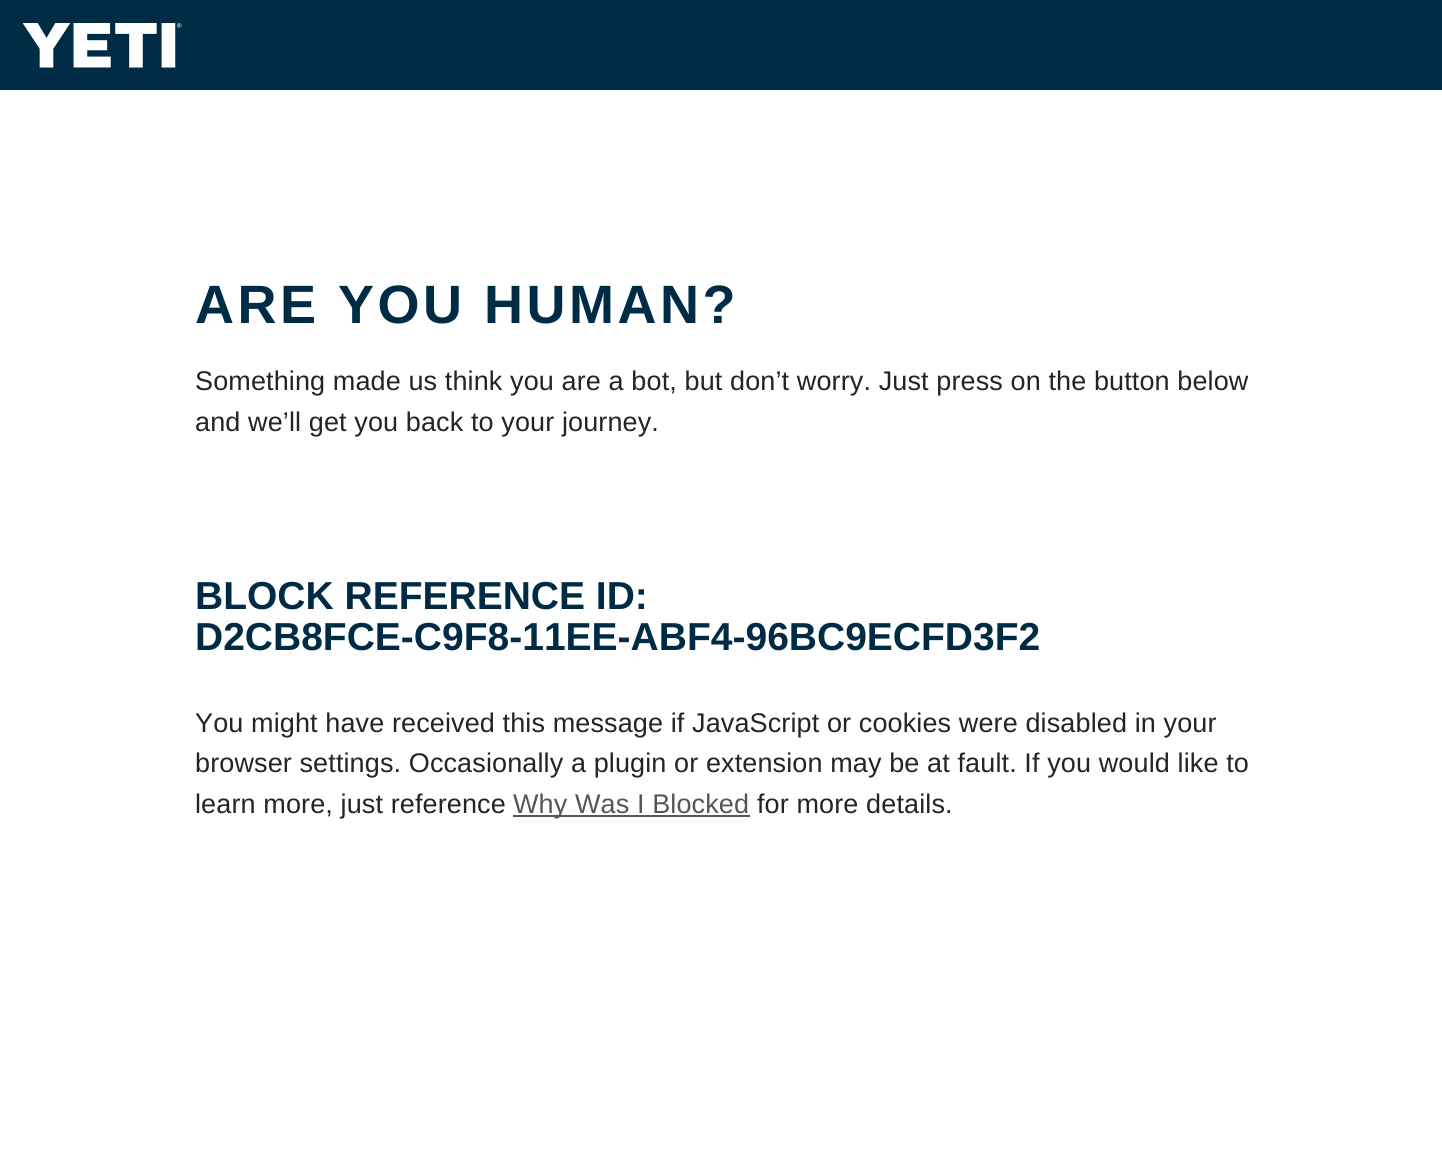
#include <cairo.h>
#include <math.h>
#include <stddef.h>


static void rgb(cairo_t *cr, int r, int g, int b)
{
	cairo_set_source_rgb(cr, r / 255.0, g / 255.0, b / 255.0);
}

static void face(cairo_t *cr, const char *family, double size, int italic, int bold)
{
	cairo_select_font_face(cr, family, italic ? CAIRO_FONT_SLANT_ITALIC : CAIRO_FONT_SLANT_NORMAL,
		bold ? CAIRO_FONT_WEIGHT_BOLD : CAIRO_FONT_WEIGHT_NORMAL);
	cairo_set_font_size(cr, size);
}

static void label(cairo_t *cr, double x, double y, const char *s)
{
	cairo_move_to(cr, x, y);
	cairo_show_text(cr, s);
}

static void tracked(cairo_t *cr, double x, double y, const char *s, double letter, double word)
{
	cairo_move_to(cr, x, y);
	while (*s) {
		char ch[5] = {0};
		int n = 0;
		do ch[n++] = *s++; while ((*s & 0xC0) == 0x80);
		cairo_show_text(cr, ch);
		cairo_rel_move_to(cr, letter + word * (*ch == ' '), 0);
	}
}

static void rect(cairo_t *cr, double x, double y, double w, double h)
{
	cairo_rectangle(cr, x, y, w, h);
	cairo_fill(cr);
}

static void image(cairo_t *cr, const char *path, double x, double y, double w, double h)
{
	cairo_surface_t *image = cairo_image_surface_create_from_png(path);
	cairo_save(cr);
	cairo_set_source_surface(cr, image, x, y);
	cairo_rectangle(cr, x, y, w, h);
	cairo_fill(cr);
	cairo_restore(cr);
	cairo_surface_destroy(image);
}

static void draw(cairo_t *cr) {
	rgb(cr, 255, 255, 255);
	cairo_paint(cr);
	rgb(cr, 0, 43, 69);
	rect(cr, 0, 0, 1442, 90);
	image(cr, "image0.png", 23, 23, 159, 45);
	face(cr, "Liberation Sans", 54, 0, 1);
	tracked(cr, 195, 323, "ARE YOU HUMAN?", 3.5, 0);
	face(cr, "Liberation Sans", 27, 0, 0);
	rgb(cr, 36, 36, 36);
	tracked(cr, 195, 390, "Something made us think you are a bot, but don’t worry. Just press on the button below", 0.12, 0);
	tracked(cr, 195, 431, "and we’ll get you back to your journey.", 0.12, 0);
	face(cr, "Liberation Sans", 39, 0, 1);
	rgb(cr, 0, 43, 69);
	label(cr, 195, 609, "BLOCK REFERENCE ID:");
	label(cr, 195, 650, "D2CB8FCE-C9F8-11EE-ABF4-96BC9ECFD3F2");
	face(cr, "Liberation Sans", 27, 0, 0);
	rgb(cr, 36, 36, 36);
	tracked(cr, 195, 732, "You might have received this message if JavaScript or cookies were disabled in your", 0.12, 0);
	tracked(cr, 195, 772, "browser settings. Occasionally a plugin or extension may be at fault. If you would like to", 0.12, 0);
	tracked(cr, 195, 813, "learn more, just reference", 0.12, 0);
	rgb(cr, 86, 86, 86);
	rect(cr, 513, 815, 237, 2);
	tracked(cr, 513, 813, "Why Was I Blocked", 0.12, 0);
	rgb(cr, 36, 36, 36);
	tracked(cr, 757, 813, "for more details.", 0.12, 0);
}

int main(void) {
	cairo_surface_t *surface = cairo_image_surface_create(CAIRO_FORMAT_RGB24, 1442, 1176);
	cairo_t *cr = cairo_create(surface);
	cairo_font_options_t *options = cairo_font_options_create();
	cairo_font_options_set_hint_metrics(options, CAIRO_HINT_METRICS_OFF);
	cairo_font_options_set_hint_style(options, CAIRO_HINT_STYLE_NONE);
	cairo_set_font_options(cr, options);
	cairo_set_miter_limit(cr, 4);
	draw(cr);
	cairo_surface_write_to_png(surface, "render.png");
	cairo_font_options_destroy(options);
	cairo_destroy(cr);
	cairo_surface_destroy(surface);
	return 0;
}
